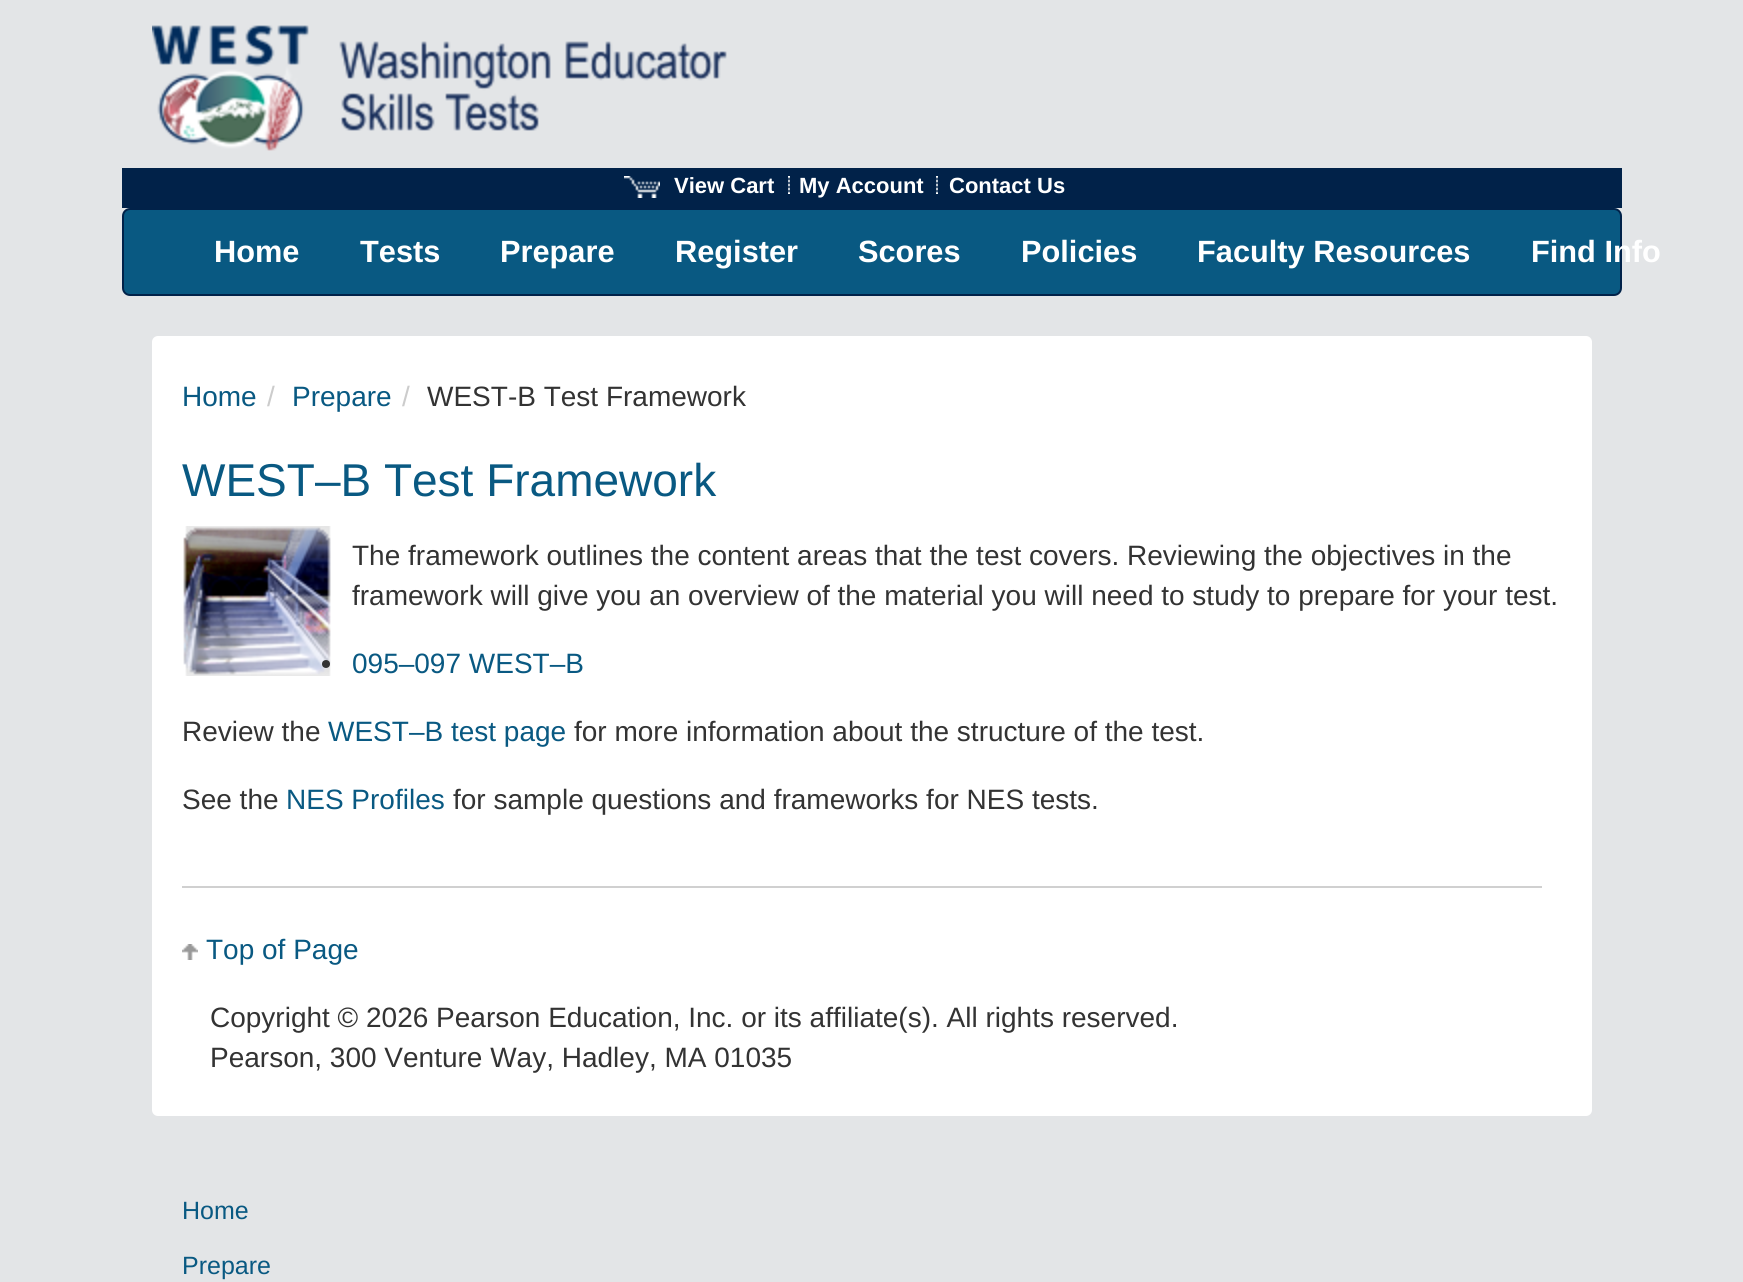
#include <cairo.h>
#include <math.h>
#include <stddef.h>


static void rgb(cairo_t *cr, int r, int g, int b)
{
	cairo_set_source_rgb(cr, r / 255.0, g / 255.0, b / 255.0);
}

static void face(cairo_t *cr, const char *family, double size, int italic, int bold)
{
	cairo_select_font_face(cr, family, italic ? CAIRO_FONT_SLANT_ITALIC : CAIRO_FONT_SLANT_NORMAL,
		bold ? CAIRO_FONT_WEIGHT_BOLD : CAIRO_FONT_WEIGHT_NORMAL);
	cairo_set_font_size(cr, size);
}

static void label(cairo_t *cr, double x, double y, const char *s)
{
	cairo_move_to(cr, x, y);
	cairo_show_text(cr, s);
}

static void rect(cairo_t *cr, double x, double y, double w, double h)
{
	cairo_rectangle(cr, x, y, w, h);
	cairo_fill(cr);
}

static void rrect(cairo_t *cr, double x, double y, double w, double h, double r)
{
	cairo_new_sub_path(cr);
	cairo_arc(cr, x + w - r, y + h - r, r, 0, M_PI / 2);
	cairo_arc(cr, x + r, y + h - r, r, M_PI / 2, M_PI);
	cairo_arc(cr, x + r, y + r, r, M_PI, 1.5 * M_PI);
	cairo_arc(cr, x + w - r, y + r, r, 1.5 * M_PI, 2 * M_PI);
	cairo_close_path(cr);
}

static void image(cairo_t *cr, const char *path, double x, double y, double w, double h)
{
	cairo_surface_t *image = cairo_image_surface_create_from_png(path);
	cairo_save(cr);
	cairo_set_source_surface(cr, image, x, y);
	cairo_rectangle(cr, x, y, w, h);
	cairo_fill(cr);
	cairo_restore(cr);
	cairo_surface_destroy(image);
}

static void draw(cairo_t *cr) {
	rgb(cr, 227, 229, 231);
	cairo_paint(cr);
	image(cr, "image0.png", 152, 25, 575, 126);
	rgb(cr, 1, 34, 73);
	rect(cr, 122, 168, 1500, 40);
	image(cr, "image1.png", 624, 176, 36, 22);
	face(cr, "Liberation Sans", 22, 0, 1);
	rgb(cr, 255, 255, 255);
	label(cr, 674, 193, "View Cart");
	image(cr, "image2.png", 788, 176, 2, 18);
	label(cr, 799, 193, "My Account");
	image(cr, "image2.png", 936, 176, 2, 18);
	label(cr, 949, 193, "Contact Us");
	rgb(cr, 9, 89, 130);
	rrect(cr, 123, 209, 1498, 86, 7);
	cairo_fill_preserve(cr);
	rgb(cr, 1, 34, 73);
	cairo_stroke(cr);
	face(cr, "Liberation Sans", 30.75, 0, 1);
	rgb(cr, 255, 255, 255);
	label(cr, 214, 262, "Home");
	label(cr, 360, 262, "Tests");
	label(cr, 500, 262, "Prepare");
	label(cr, 675, 262, "Register");
	label(cr, 858, 262, "Scores");
	label(cr, 1021, 262, "Policies");
	label(cr, 1197, 262, "Faculty Resources");
	label(cr, 1531, 262, "Find Info");
	rrect(cr, 152, 336, 1440, 780, 6);
	cairo_fill(cr);
	face(cr, "Liberation Sans", 28, 0, 0);
	rgb(cr, 9, 89, 130);
	label(cr, 182, 406, "Home");
	rgb(cr, 204, 204, 204);
	label(cr, 267, 406, "/");
	rgb(cr, 9, 89, 130);
	label(cr, 292, 406, "Prepare");
	rgb(cr, 204, 204, 204);
	label(cr, 402, 406, "/");
	rgb(cr, 51, 51, 51);
	label(cr, 427, 406, "WEST-B Test Framework");
	face(cr, "Liberation Sans", 46, 0, 0);
	rgb(cr, 9, 89, 130);
	label(cr, 182, 496, "WEST–B Test Framework");
	image(cr, "image3.png", 183, 526, 148, 150);
	face(cr, "Liberation Sans", 28, 0, 0);
	rgb(cr, 51, 51, 51);
	label(cr, 352, 565, "The framework outlines the content areas that the test covers. Reviewing the objectives in the");
	label(cr, 352, 605, "framework will give you an overview of the material you will need to study to prepare for your test.");
	cairo_new_path(cr);
	cairo_arc(cr, 326, 664, 4, 0, 2 * M_PI);
	cairo_fill(cr);
	rgb(cr, 9, 89, 130);
	label(cr, 352, 673, "095–097 WEST–B");
	rgb(cr, 51, 51, 51);
	label(cr, 182, 741, "Review the");
	rgb(cr, 9, 89, 130);
	label(cr, 328, 741, "WEST–B test page");
	rgb(cr, 51, 51, 51);
	label(cr, 574, 741, "for more information about the structure of the test.");
	label(cr, 182, 809, "See the");
	rgb(cr, 9, 89, 130);
	label(cr, 286, 809, "NES Profiles");
	rgb(cr, 51, 51, 51);
	label(cr, 453, 809, "for sample questions and frameworks for NES tests.");
	rgb(cr, 208, 208, 208);
	rect(cr, 182, 886, 1360, 2);
	image(cr, "image4.png", 182, 944, 16, 16);
	rgb(cr, 9, 89, 130);
	label(cr, 206, 959, "Top of Page");
	rgb(cr, 51, 51, 51);
	label(cr, 210, 1027, "Copyright © 2026 Pearson Education, Inc. or its affiliate(s). All rights reserved.");
	label(cr, 210, 1067, "Pearson, 300 Venture Way, Hadley, MA 01035");
	face(cr, "Liberation Sans", 25, 0, 0);
	rgb(cr, 9, 89, 130);
	label(cr, 182, 1219, "Home");
	label(cr, 182, 1274, "Prepare");
}

int main(void) {
	cairo_surface_t *surface = cairo_image_surface_create(CAIRO_FORMAT_RGB24, 1743, 1282);
	cairo_t *cr = cairo_create(surface);
	cairo_font_options_t *options = cairo_font_options_create();
	cairo_font_options_set_hint_metrics(options, CAIRO_HINT_METRICS_OFF);
	cairo_font_options_set_hint_style(options, CAIRO_HINT_STYLE_NONE);
	cairo_set_font_options(cr, options);
	cairo_set_miter_limit(cr, 4);
	draw(cr);
	cairo_surface_write_to_png(surface, "render.png");
	cairo_font_options_destroy(options);
	cairo_destroy(cr);
	cairo_surface_destroy(surface);
	return 0;
}
